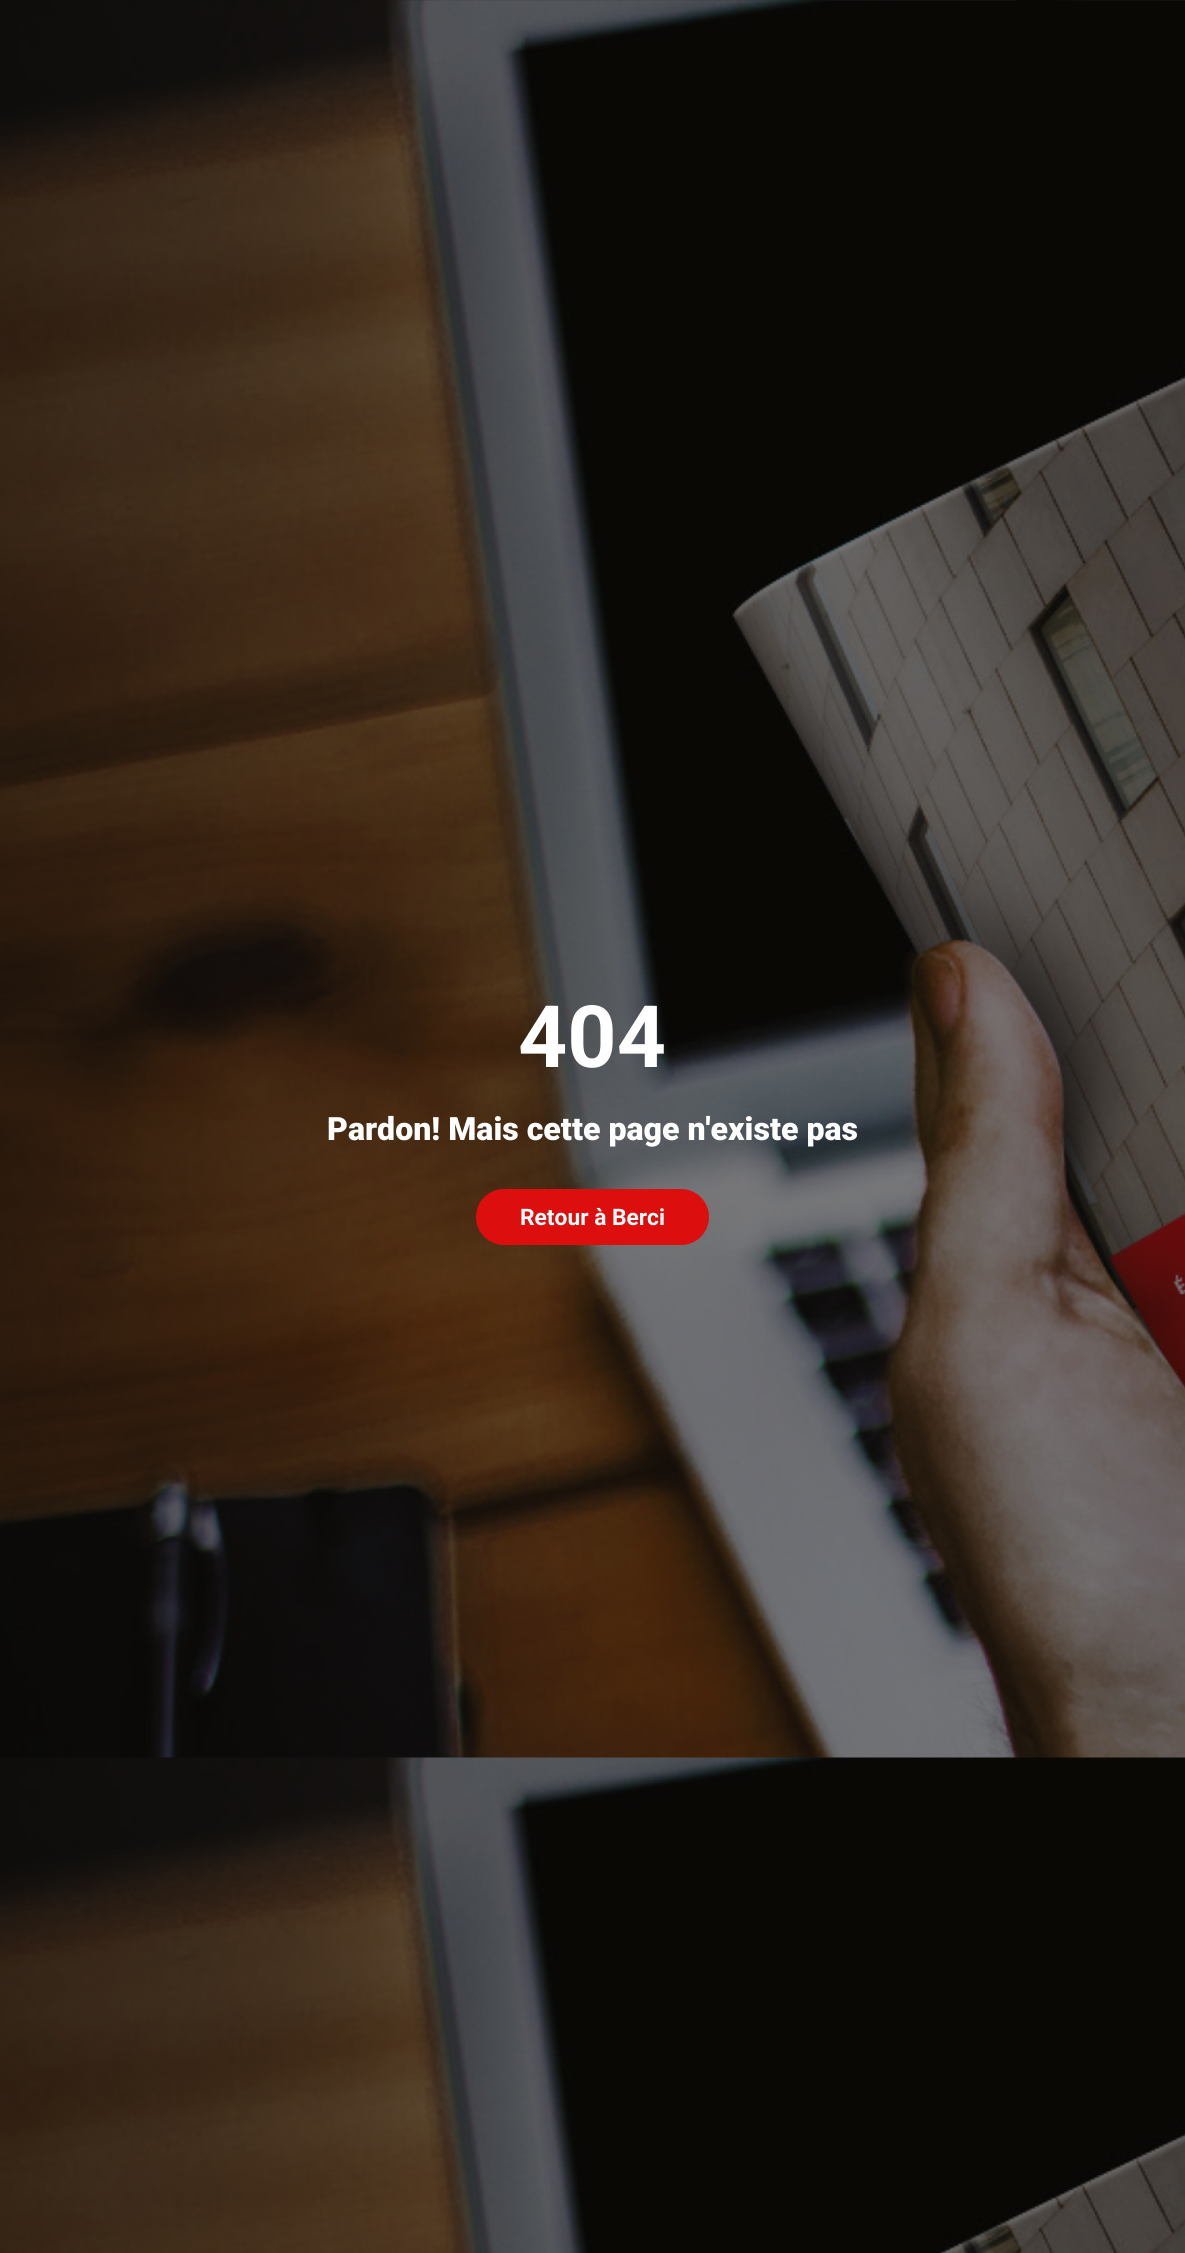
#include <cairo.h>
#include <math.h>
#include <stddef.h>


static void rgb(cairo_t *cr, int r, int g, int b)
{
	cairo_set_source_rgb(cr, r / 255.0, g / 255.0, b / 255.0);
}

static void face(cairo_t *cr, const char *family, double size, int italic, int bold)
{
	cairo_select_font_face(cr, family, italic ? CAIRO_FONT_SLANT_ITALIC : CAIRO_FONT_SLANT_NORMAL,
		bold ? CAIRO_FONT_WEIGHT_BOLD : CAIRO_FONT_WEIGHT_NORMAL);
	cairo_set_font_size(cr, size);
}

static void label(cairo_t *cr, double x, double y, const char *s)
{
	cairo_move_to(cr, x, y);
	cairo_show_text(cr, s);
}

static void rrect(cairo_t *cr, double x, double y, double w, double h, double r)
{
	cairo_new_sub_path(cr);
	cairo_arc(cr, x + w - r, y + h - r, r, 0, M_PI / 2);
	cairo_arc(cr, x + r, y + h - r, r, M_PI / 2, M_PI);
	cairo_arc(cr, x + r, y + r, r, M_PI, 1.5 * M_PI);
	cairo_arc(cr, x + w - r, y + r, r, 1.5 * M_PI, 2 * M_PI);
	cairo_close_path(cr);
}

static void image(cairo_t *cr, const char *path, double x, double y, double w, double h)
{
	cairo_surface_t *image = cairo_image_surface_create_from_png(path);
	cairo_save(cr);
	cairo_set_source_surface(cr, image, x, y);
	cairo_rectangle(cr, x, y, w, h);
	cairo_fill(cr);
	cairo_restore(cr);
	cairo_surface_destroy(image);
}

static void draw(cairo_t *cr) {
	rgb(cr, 255, 255, 255);
	cairo_paint(cr);
	image(cr, "image0.png", 0, 0, 1185, 2253);
	face(cr, "Roboto", 86, 0, 1);
	rgb(cr, 255, 255, 255);
	label(cr, 518, 1067, "404");
	face(cr, "Roboto Black", 32.1, 0, 0);
	label(cr, 327, 1140, "Pardon! Mais cette page n'existe pas");
	rgb(cr, 221, 14, 14);
	rrect(cr, 476, 1189, 233, 56, 28);
	cairo_fill(cr);
	face(cr, "Roboto", 22.75, 0, 1);
	rgb(cr, 255, 255, 255);
	label(cr, 520, 1225, "Retour à Berci");
}

int main(void) {
	cairo_surface_t *surface = cairo_image_surface_create(CAIRO_FORMAT_RGB24, 1185, 2253);
	cairo_t *cr = cairo_create(surface);
	cairo_font_options_t *options = cairo_font_options_create();
	cairo_font_options_set_hint_metrics(options, CAIRO_HINT_METRICS_OFF);
	cairo_font_options_set_hint_style(options, CAIRO_HINT_STYLE_NONE);
	cairo_set_font_options(cr, options);
	cairo_set_miter_limit(cr, 4);
	draw(cr);
	cairo_surface_write_to_png(surface, "render.png");
	cairo_font_options_destroy(options);
	cairo_destroy(cr);
	cairo_surface_destroy(surface);
	return 0;
}
